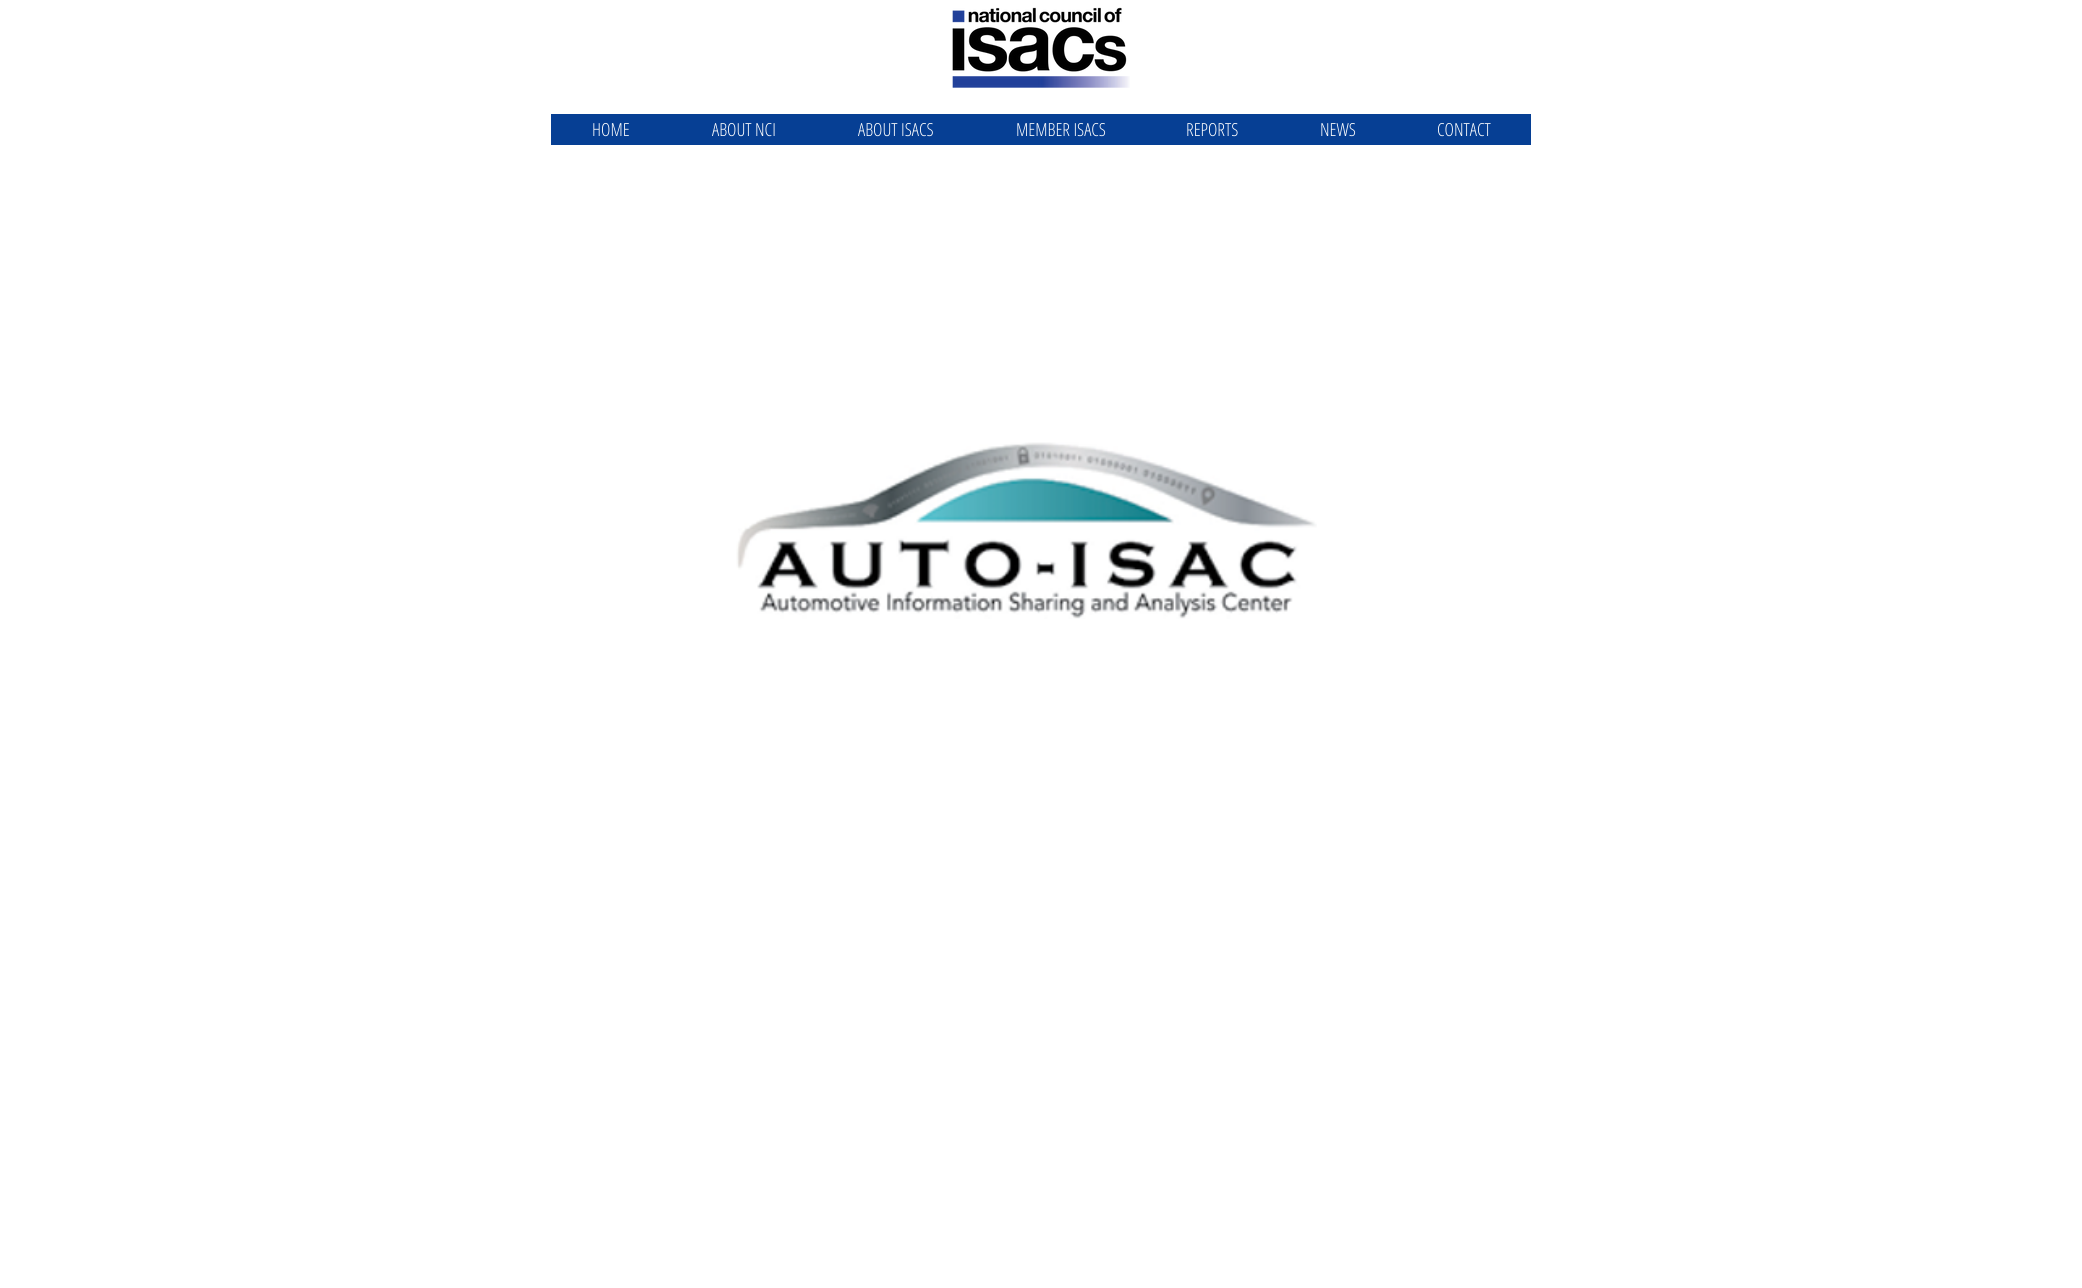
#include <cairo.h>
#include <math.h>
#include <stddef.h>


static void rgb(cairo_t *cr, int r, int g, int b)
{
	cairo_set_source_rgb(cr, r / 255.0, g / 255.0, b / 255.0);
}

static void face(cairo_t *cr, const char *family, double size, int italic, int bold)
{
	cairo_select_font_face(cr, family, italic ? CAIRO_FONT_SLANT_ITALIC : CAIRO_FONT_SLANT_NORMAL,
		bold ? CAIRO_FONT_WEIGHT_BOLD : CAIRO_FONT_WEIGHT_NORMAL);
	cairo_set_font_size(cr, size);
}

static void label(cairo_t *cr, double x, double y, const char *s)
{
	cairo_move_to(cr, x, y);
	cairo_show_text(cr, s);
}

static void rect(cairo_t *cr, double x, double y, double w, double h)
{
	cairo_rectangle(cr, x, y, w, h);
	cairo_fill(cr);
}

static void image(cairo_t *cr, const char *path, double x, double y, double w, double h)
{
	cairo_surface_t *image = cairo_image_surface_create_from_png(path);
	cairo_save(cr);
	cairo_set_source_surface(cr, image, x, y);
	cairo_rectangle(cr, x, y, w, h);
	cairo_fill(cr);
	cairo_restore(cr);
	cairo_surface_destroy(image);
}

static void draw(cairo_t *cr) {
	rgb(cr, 255, 255, 255);
	cairo_paint(cr);
	image(cr, "image0.png", 952, 7, 178, 81);
	rgb(cr, 6, 63, 148);
	rect(cr, 551, 114, 980, 31);
	face(cr, "Open Sans Condensed Light", 18, 0, 0);
	rgb(cr, 255, 255, 255);
	label(cr, 592, 136, "HOME");
	label(cr, 712, 136, "ABOUT NCI");
	label(cr, 858, 136, "ABOUT ISACS");
	label(cr, 1016, 136, "MEMBER ISACS");
	label(cr, 1186, 136, "REPORTS");
	label(cr, 1320, 136, "NEWS");
	label(cr, 1437, 136, "CONTACT");
	image(cr, "image1.png", 736, 442, 581, 177);
}

int main(void) {
	cairo_surface_t *surface = cairo_image_surface_create(CAIRO_FORMAT_RGB24, 2082, 1288);
	cairo_t *cr = cairo_create(surface);
	cairo_font_options_t *options = cairo_font_options_create();
	cairo_font_options_set_hint_metrics(options, CAIRO_HINT_METRICS_OFF);
	cairo_font_options_set_hint_style(options, CAIRO_HINT_STYLE_NONE);
	cairo_set_font_options(cr, options);
	cairo_set_miter_limit(cr, 4);
	draw(cr);
	cairo_surface_write_to_png(surface, "render.png");
	cairo_font_options_destroy(options);
	cairo_destroy(cr);
	cairo_surface_destroy(surface);
	return 0;
}
